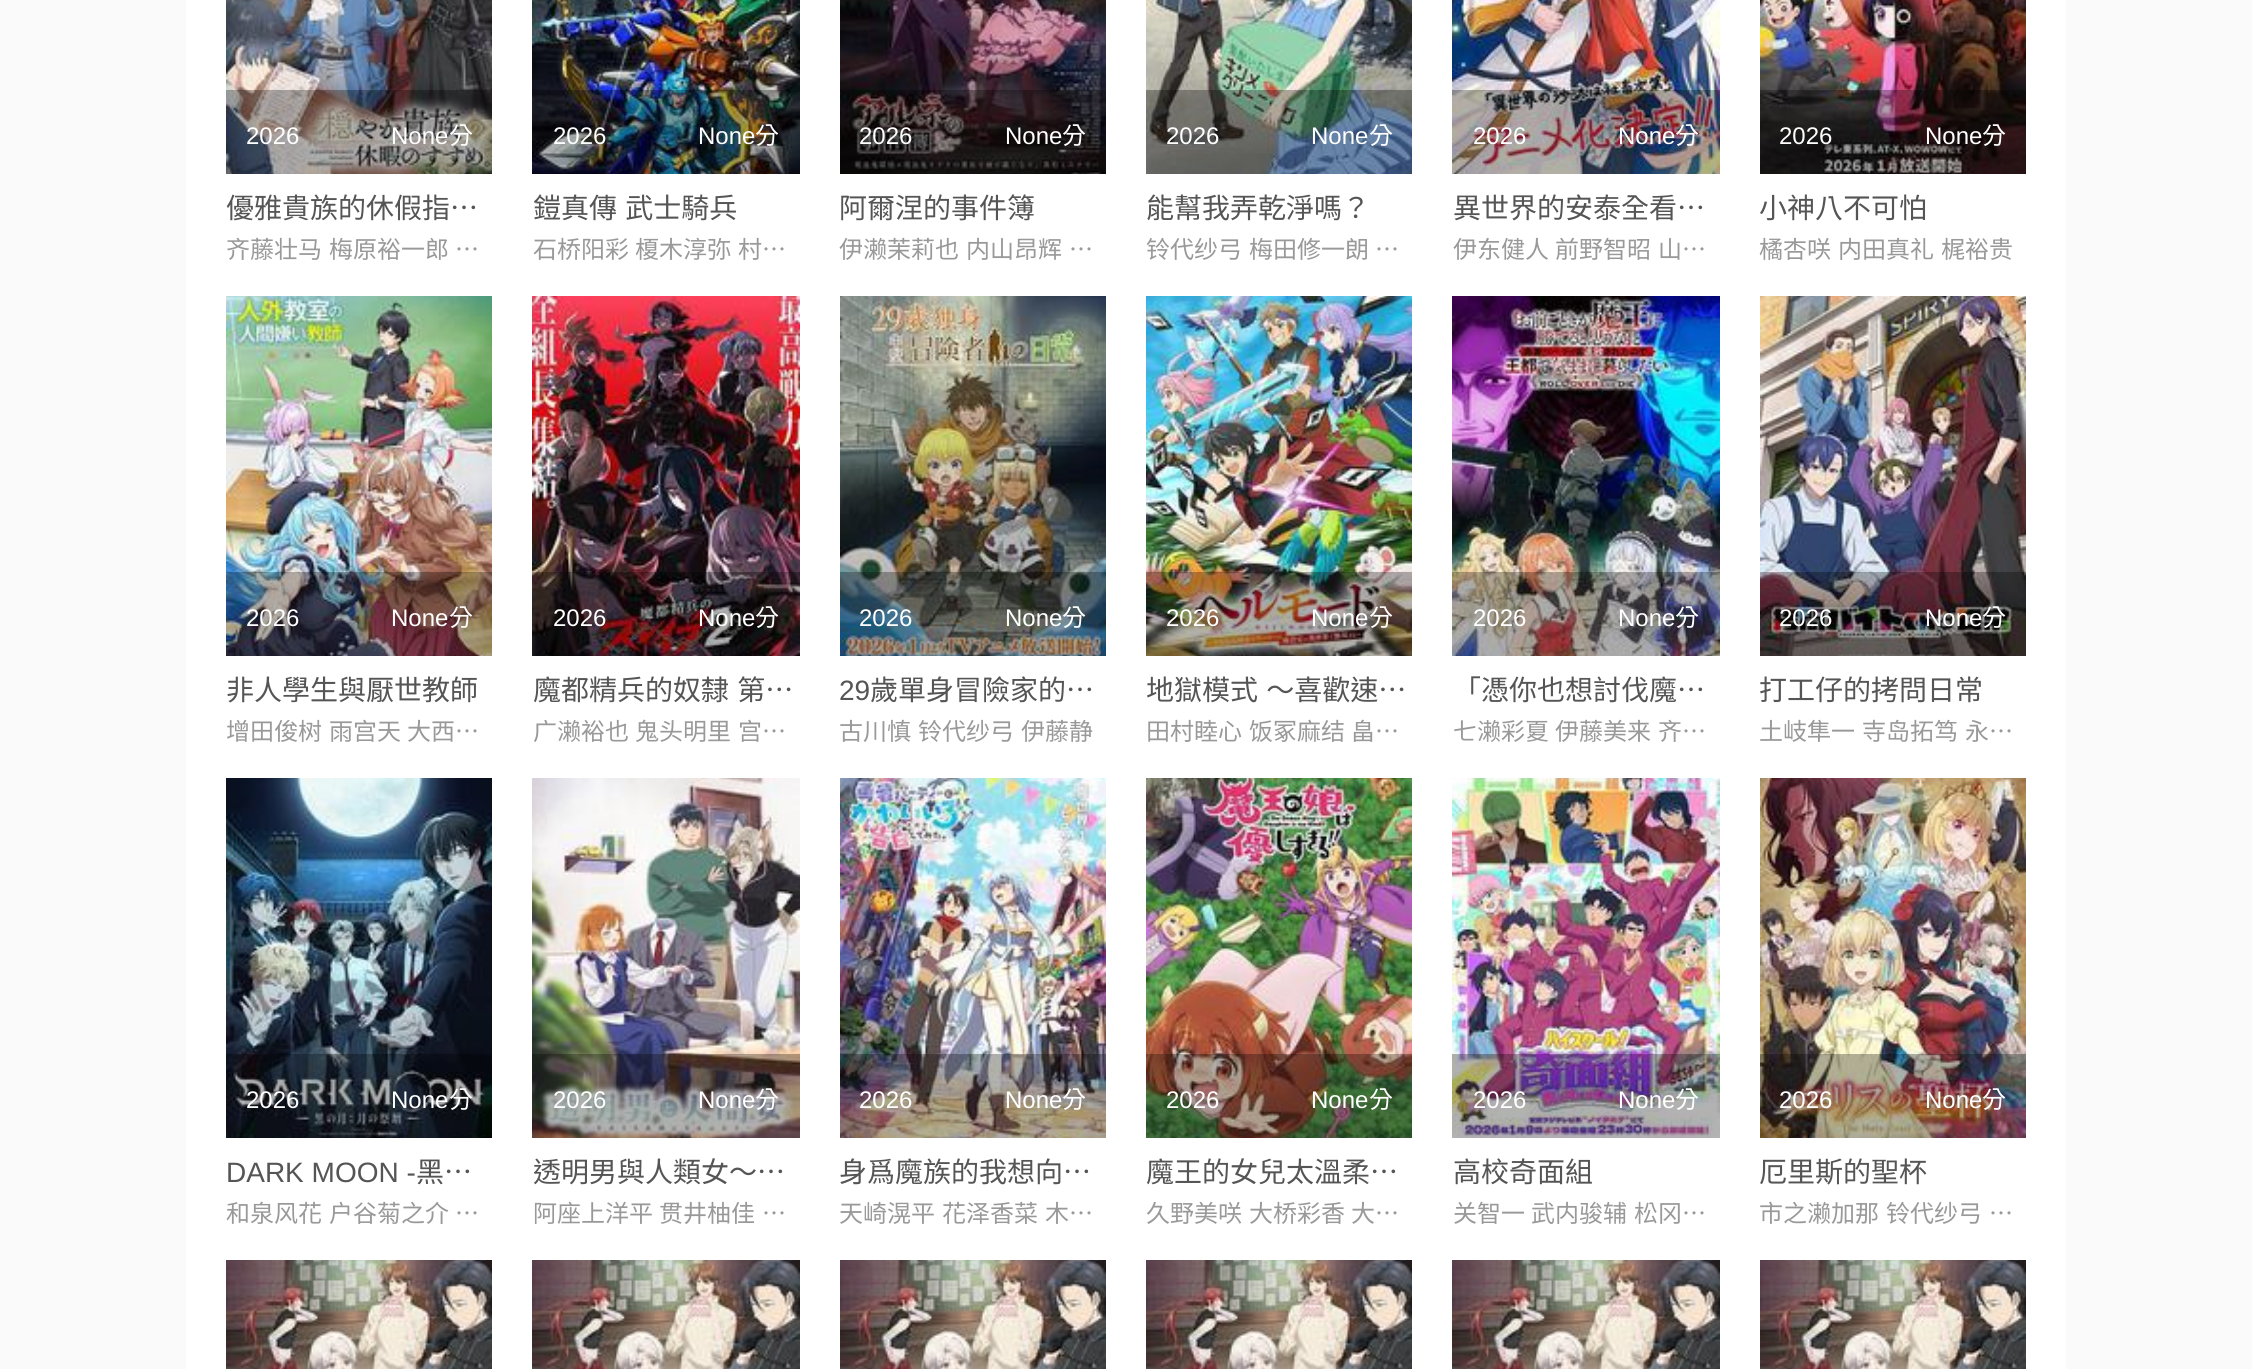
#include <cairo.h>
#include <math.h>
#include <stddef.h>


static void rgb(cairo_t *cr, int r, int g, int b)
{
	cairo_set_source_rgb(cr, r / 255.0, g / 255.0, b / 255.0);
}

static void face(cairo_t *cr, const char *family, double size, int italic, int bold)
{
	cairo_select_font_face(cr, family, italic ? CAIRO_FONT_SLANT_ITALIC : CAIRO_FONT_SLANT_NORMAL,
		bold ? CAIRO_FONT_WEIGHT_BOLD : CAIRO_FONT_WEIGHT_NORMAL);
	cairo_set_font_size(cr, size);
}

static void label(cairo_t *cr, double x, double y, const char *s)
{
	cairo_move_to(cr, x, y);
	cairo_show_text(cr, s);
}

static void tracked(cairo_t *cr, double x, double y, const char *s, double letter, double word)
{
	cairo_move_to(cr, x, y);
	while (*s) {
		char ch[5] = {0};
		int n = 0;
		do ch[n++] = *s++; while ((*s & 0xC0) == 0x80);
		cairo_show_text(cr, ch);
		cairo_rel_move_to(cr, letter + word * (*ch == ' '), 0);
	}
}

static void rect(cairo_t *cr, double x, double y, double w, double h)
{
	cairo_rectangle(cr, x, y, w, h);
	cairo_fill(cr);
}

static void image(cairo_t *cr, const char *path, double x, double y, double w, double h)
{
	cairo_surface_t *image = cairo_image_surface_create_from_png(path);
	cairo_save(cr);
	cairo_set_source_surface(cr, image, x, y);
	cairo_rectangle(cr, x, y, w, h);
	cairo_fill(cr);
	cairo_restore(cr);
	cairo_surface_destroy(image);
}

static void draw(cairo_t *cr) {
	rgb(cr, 250, 250, 250);
	cairo_paint(cr);
	rgb(cr, 255, 255, 255);
	rect(cr, 186, 0, 1880, 1369);
	image(cr, "image0.png", 226, 0, 266, 174);
	cairo_set_source_rgba(cr, 0, 0, 0, 0.3);
	rect(cr, 226, 90, 266, 84);
	face(cr, "Liberation Sans", 24, 0, 0);
	rgb(cr, 255, 255, 255);
	label(cr, 246, 144, "2026");
	label(cr, 391, 144, "None");
	face(cr, "Noto Sans CJK TC", 24, 0, 0);
	label(cr, 449, 144, "分");
	face(cr, "Noto Sans CJK TC", 28, 0, 0);
	rgb(cr, 85, 85, 85);
	label(cr, 226, 218, "優雅貴族的休假指…");
	face(cr, "Noto Sans CJK TC", 24, 0, 0);
	rgb(cr, 153, 153, 153);
	label(cr, 226, 258, "齐藤壮马");
	label(cr, 329, 258, "梅原裕一郎");
	label(cr, 455, 258, "…");
	image(cr, "image1.png", 532, 0, 268, 174);
	cairo_set_source_rgba(cr, 0, 0, 0, 0.3);
	rect(cr, 532, 90, 268, 84);
	face(cr, "Liberation Sans", 24, 0, 0);
	rgb(cr, 255, 255, 255);
	label(cr, 553, 144, "2026");
	label(cr, 698, 144, "None");
	face(cr, "Noto Sans CJK TC", 24, 0, 0);
	label(cr, 755, 144, "分");
	face(cr, "Noto Sans CJK TC", 28, 0, 0);
	rgb(cr, 85, 85, 85);
	tracked(cr, 533, 218, "鎧真傳 武士騎兵", 0, 2);
	face(cr, "Noto Sans CJK TC", 24, 0, 0);
	rgb(cr, 153, 153, 153);
	label(cr, 533, 258, "石桥阳彩");
	label(cr, 635, 258, "榎木淳弥");
	label(cr, 738, 258, "村…");
	image(cr, "image2.png", 840, 0, 266, 174);
	cairo_set_source_rgba(cr, 0, 0, 0, 0.3);
	rect(cr, 840, 90, 266, 84);
	face(cr, "Liberation Sans", 24, 0, 0);
	rgb(cr, 255, 255, 255);
	label(cr, 859, 144, "2026");
	label(cr, 1005, 144, "None");
	face(cr, "Noto Sans CJK TC", 24, 0, 0);
	label(cr, 1062, 144, "分");
	face(cr, "Noto Sans CJK TC", 28, 0, 0);
	rgb(cr, 85, 85, 85);
	label(cr, 839, 218, "阿爾涅的事件簿");
	face(cr, "Noto Sans CJK TC", 24, 0, 0);
	rgb(cr, 153, 153, 153);
	label(cr, 839, 258, "伊濑茉莉也");
	label(cr, 966, 258, "内山昂辉");
	label(cr, 1069, 258, "…");
	image(cr, "image3.png", 1146, 0, 266, 174);
	cairo_set_source_rgba(cr, 0, 0, 0, 0.3);
	rect(cr, 1146, 90, 266, 84);
	face(cr, "Liberation Sans", 24, 0, 0);
	rgb(cr, 255, 255, 255);
	label(cr, 1166, 144, "2026");
	label(cr, 1311, 144, "None");
	face(cr, "Noto Sans CJK TC", 24, 0, 0);
	label(cr, 1369, 144, "分");
	face(cr, "Noto Sans CJK TC", 28, 0, 0);
	rgb(cr, 85, 85, 85);
	label(cr, 1146, 218, "能幫我弄乾淨嗎？");
	face(cr, "Noto Sans CJK TC", 24, 0, 0);
	rgb(cr, 153, 153, 153);
	label(cr, 1146, 258, "铃代纱弓");
	label(cr, 1249, 258, "梅田修一朗");
	label(cr, 1375, 258, "…");
	image(cr, "image4.png", 1452, 0, 268, 174);
	cairo_set_source_rgba(cr, 0, 0, 0, 0.3);
	rect(cr, 1452, 90, 268, 84);
	face(cr, "Liberation Sans", 24, 0, 0);
	rgb(cr, 255, 255, 255);
	label(cr, 1473, 144, "2026");
	label(cr, 1618, 144, "None");
	face(cr, "Noto Sans CJK TC", 24, 0, 0);
	label(cr, 1675, 144, "分");
	face(cr, "Noto Sans CJK TC", 28, 0, 0);
	rgb(cr, 85, 85, 85);
	label(cr, 1453, 218, "異世界的安泰全看…");
	face(cr, "Noto Sans CJK TC", 24, 0, 0);
	rgb(cr, 153, 153, 153);
	label(cr, 1453, 258, "伊东健人");
	label(cr, 1555, 258, "前野智昭");
	label(cr, 1658, 258, "山…");
	image(cr, "image5.png", 1760, 0, 266, 174);
	cairo_set_source_rgba(cr, 0, 0, 0, 0.3);
	rect(cr, 1760, 90, 266, 84);
	face(cr, "Liberation Sans", 24, 0, 0);
	rgb(cr, 255, 255, 255);
	label(cr, 1779, 144, "2026");
	label(cr, 1925, 144, "None");
	face(cr, "Noto Sans CJK TC", 24, 0, 0);
	label(cr, 1982, 144, "分");
	face(cr, "Noto Sans CJK TC", 28, 0, 0);
	rgb(cr, 85, 85, 85);
	label(cr, 1759, 218, "小神八不可怕");
	face(cr, "Noto Sans CJK TC", 24, 0, 0);
	rgb(cr, 153, 153, 153);
	label(cr, 1759, 258, "橘杏咲");
	label(cr, 1838, 258, "内田真礼");
	label(cr, 1941, 258, "梶裕贵");
	image(cr, "image6.png", 226, 296, 266, 360);
	cairo_set_source_rgba(cr, 0, 0, 0, 0.3);
	rect(cr, 226, 572, 266, 84);
	face(cr, "Liberation Sans", 24, 0, 0);
	rgb(cr, 255, 255, 255);
	label(cr, 246, 626, "2026");
	label(cr, 391, 626, "None");
	face(cr, "Noto Sans CJK TC", 24, 0, 0);
	label(cr, 449, 626, "分");
	face(cr, "Noto Sans CJK TC", 28, 0, 0);
	rgb(cr, 85, 85, 85);
	label(cr, 226, 700, "非人學生與厭世教師");
	face(cr, "Noto Sans CJK TC", 24, 0, 0);
	rgb(cr, 153, 153, 153);
	label(cr, 226, 740, "增田俊树");
	label(cr, 329, 740, "雨宫天");
	label(cr, 407, 740, "大西…");
	image(cr, "image7.png", 532, 296, 268, 360);
	cairo_set_source_rgba(cr, 0, 0, 0, 0.3);
	rect(cr, 532, 572, 268, 84);
	face(cr, "Liberation Sans", 24, 0, 0);
	rgb(cr, 255, 255, 255);
	label(cr, 553, 626, "2026");
	label(cr, 698, 626, "None");
	face(cr, "Noto Sans CJK TC", 24, 0, 0);
	label(cr, 755, 626, "分");
	face(cr, "Noto Sans CJK TC", 28, 0, 0);
	rgb(cr, 85, 85, 85);
	tracked(cr, 533, 700, "魔都精兵的奴隸 第…", 0, 2);
	face(cr, "Noto Sans CJK TC", 24, 0, 0);
	rgb(cr, 153, 153, 153);
	label(cr, 533, 740, "广濑裕也");
	label(cr, 635, 740, "鬼头明里");
	label(cr, 738, 740, "宫…");
	image(cr, "image8.png", 840, 296, 266, 360);
	cairo_set_source_rgba(cr, 0, 0, 0, 0.3);
	rect(cr, 840, 572, 266, 84);
	face(cr, "Liberation Sans", 24, 0, 0);
	rgb(cr, 255, 255, 255);
	label(cr, 859, 626, "2026");
	label(cr, 1005, 626, "None");
	face(cr, "Noto Sans CJK TC", 24, 0, 0);
	label(cr, 1062, 626, "分");
	face(cr, "Liberation Sans", 28, 0, 0);
	rgb(cr, 85, 85, 85);
	label(cr, 839, 700, "29");
	face(cr, "Noto Sans CJK TC", 28, 0, 0);
	label(cr, 870, 700, "歲單身冒險家的…");
	face(cr, "Noto Sans CJK TC", 24, 0, 0);
	rgb(cr, 153, 153, 153);
	label(cr, 839, 740, "古川慎");
	label(cr, 918, 740, "铃代纱弓");
	label(cr, 1021, 740, "伊藤静");
	image(cr, "image9.png", 1146, 296, 266, 360);
	cairo_set_source_rgba(cr, 0, 0, 0, 0.3);
	rect(cr, 1146, 572, 266, 84);
	face(cr, "Liberation Sans", 24, 0, 0);
	rgb(cr, 255, 255, 255);
	label(cr, 1166, 626, "2026");
	label(cr, 1311, 626, "None");
	face(cr, "Noto Sans CJK TC", 24, 0, 0);
	label(cr, 1369, 626, "分");
	face(cr, "Noto Sans CJK TC", 28, 0, 0);
	rgb(cr, 85, 85, 85);
	tracked(cr, 1146, 700, "地獄模式 ～喜歡速…", 0, 2);
	face(cr, "Noto Sans CJK TC", 24, 0, 0);
	rgb(cr, 153, 153, 153);
	label(cr, 1146, 740, "田村睦心");
	label(cr, 1249, 740, "饭冢麻结");
	label(cr, 1351, 740, "畠…");
	image(cr, "image10.png", 1452, 296, 268, 360);
	cairo_set_source_rgba(cr, 0, 0, 0, 0.3);
	rect(cr, 1452, 572, 268, 84);
	face(cr, "Liberation Sans", 24, 0, 0);
	rgb(cr, 255, 255, 255);
	label(cr, 1473, 626, "2026");
	label(cr, 1618, 626, "None");
	face(cr, "Noto Sans CJK TC", 24, 0, 0);
	label(cr, 1675, 626, "分");
	face(cr, "Noto Sans CJK TC", 28, 0, 0);
	rgb(cr, 85, 85, 85);
	label(cr, 1453, 700, "「憑你也想討伐魔…");
	face(cr, "Noto Sans CJK TC", 24, 0, 0);
	rgb(cr, 153, 153, 153);
	label(cr, 1453, 740, "七濑彩夏");
	label(cr, 1555, 740, "伊藤美来");
	label(cr, 1658, 740, "齐…");
	image(cr, "image11.png", 1760, 296, 266, 360);
	cairo_set_source_rgba(cr, 0, 0, 0, 0.3);
	rect(cr, 1760, 572, 266, 84);
	face(cr, "Liberation Sans", 24, 0, 0);
	rgb(cr, 255, 255, 255);
	label(cr, 1779, 626, "2026");
	label(cr, 1925, 626, "None");
	face(cr, "Noto Sans CJK TC", 24, 0, 0);
	label(cr, 1982, 626, "分");
	face(cr, "Noto Sans CJK TC", 28, 0, 0);
	rgb(cr, 85, 85, 85);
	label(cr, 1759, 700, "打工仔的拷問日常");
	face(cr, "Noto Sans CJK TC", 24, 0, 0);
	rgb(cr, 153, 153, 153);
	label(cr, 1759, 740, "土岐隼一");
	label(cr, 1862, 740, "寺岛拓笃");
	label(cr, 1965, 740, "永…");
	image(cr, "image12.png", 226, 778, 266, 360);
	cairo_set_source_rgba(cr, 0, 0, 0, 0.3);
	rect(cr, 226, 1054, 266, 84);
	face(cr, "Liberation Sans", 24, 0, 0);
	rgb(cr, 255, 255, 255);
	label(cr, 246, 1108, "2026");
	label(cr, 391, 1108, "None");
	face(cr, "Noto Sans CJK TC", 24, 0, 0);
	label(cr, 449, 1108, "分");
	face(cr, "Liberation Sans", 28, 0, 0);
	rgb(cr, 85, 85, 85);
	label(cr, 226, 1182, "DARK MOON -");
	face(cr, "Noto Sans CJK TC", 28, 0, 0);
	label(cr, 416, 1182, "黑…");
	face(cr, "Noto Sans CJK TC", 24, 0, 0);
	rgb(cr, 153, 153, 153);
	label(cr, 226, 1222, "和泉风花");
	label(cr, 329, 1222, "户谷菊之介");
	label(cr, 455, 1222, "…");
	image(cr, "image13.png", 532, 778, 268, 360);
	cairo_set_source_rgba(cr, 0, 0, 0, 0.3);
	rect(cr, 532, 1054, 268, 84);
	face(cr, "Liberation Sans", 24, 0, 0);
	rgb(cr, 255, 255, 255);
	label(cr, 553, 1108, "2026");
	label(cr, 698, 1108, "None");
	face(cr, "Noto Sans CJK TC", 24, 0, 0);
	label(cr, 755, 1108, "分");
	face(cr, "Noto Sans CJK TC", 28, 0, 0);
	rgb(cr, 85, 85, 85);
	label(cr, 533, 1182, "透明男與人類女～…");
	face(cr, "Noto Sans CJK TC", 24, 0, 0);
	rgb(cr, 153, 153, 153);
	label(cr, 533, 1222, "阿座上洋平");
	label(cr, 659, 1222, "贯井柚佳");
	label(cr, 762, 1222, "…");
	image(cr, "image14.png", 840, 778, 266, 360);
	cairo_set_source_rgba(cr, 0, 0, 0, 0.3);
	rect(cr, 840, 1054, 266, 84);
	face(cr, "Liberation Sans", 24, 0, 0);
	rgb(cr, 255, 255, 255);
	label(cr, 859, 1108, "2026");
	label(cr, 1005, 1108, "None");
	face(cr, "Noto Sans CJK TC", 24, 0, 0);
	label(cr, 1062, 1108, "分");
	face(cr, "Noto Sans CJK TC", 28, 0, 0);
	rgb(cr, 85, 85, 85);
	label(cr, 839, 1182, "身爲魔族的我想向…");
	face(cr, "Noto Sans CJK TC", 24, 0, 0);
	rgb(cr, 153, 153, 153);
	label(cr, 839, 1222, "天崎滉平");
	label(cr, 942, 1222, "花泽香菜");
	label(cr, 1045, 1222, "木…");
	image(cr, "image15.png", 1146, 778, 266, 360);
	cairo_set_source_rgba(cr, 0, 0, 0, 0.3);
	rect(cr, 1146, 1054, 266, 84);
	face(cr, "Liberation Sans", 24, 0, 0);
	rgb(cr, 255, 255, 255);
	label(cr, 1166, 1108, "2026");
	label(cr, 1311, 1108, "None");
	face(cr, "Noto Sans CJK TC", 24, 0, 0);
	label(cr, 1369, 1108, "分");
	face(cr, "Noto Sans CJK TC", 28, 0, 0);
	rgb(cr, 85, 85, 85);
	label(cr, 1146, 1182, "魔王的女兒太溫柔…");
	face(cr, "Noto Sans CJK TC", 24, 0, 0);
	rgb(cr, 153, 153, 153);
	label(cr, 1146, 1222, "久野美咲");
	label(cr, 1249, 1222, "大桥彩香");
	label(cr, 1351, 1222, "大…");
	image(cr, "image16.png", 1452, 778, 268, 360);
	cairo_set_source_rgba(cr, 0, 0, 0, 0.3);
	rect(cr, 1452, 1054, 268, 84);
	face(cr, "Liberation Sans", 24, 0, 0);
	rgb(cr, 255, 255, 255);
	label(cr, 1473, 1108, "2026");
	label(cr, 1618, 1108, "None");
	face(cr, "Noto Sans CJK TC", 24, 0, 0);
	label(cr, 1675, 1108, "分");
	face(cr, "Noto Sans CJK TC", 28, 0, 0);
	rgb(cr, 85, 85, 85);
	label(cr, 1453, 1182, "高校奇面組");
	face(cr, "Noto Sans CJK TC", 24, 0, 0);
	rgb(cr, 153, 153, 153);
	label(cr, 1453, 1222, "关智一");
	label(cr, 1531, 1222, "武内骏辅");
	label(cr, 1634, 1222, "松冈…");
	image(cr, "image17.png", 1760, 778, 266, 360);
	cairo_set_source_rgba(cr, 0, 0, 0, 0.3);
	rect(cr, 1760, 1054, 266, 84);
	face(cr, "Liberation Sans", 24, 0, 0);
	rgb(cr, 255, 255, 255);
	label(cr, 1779, 1108, "2026");
	label(cr, 1925, 1108, "None");
	face(cr, "Noto Sans CJK TC", 24, 0, 0);
	label(cr, 1982, 1108, "分");
	face(cr, "Noto Sans CJK TC", 28, 0, 0);
	rgb(cr, 85, 85, 85);
	label(cr, 1759, 1182, "厄里斯的聖杯");
	face(cr, "Noto Sans CJK TC", 24, 0, 0);
	rgb(cr, 153, 153, 153);
	label(cr, 1759, 1222, "市之濑加那");
	label(cr, 1886, 1222, "铃代纱弓");
	label(cr, 1989, 1222, "…");
	image(cr, "image18.png", 226, 1260, 266, 109);
	image(cr, "image19.png", 532, 1260, 268, 109);
	image(cr, "image20.png", 840, 1260, 266, 109);
	image(cr, "image21.png", 1146, 1260, 266, 109);
	image(cr, "image19.png", 1452, 1260, 268, 109);
	image(cr, "image22.png", 1760, 1260, 266, 109);
}

int main(void) {
	cairo_surface_t *surface = cairo_image_surface_create(CAIRO_FORMAT_RGB24, 2252, 1369);
	cairo_t *cr = cairo_create(surface);
	cairo_font_options_t *options = cairo_font_options_create();
	cairo_font_options_set_hint_metrics(options, CAIRO_HINT_METRICS_OFF);
	cairo_font_options_set_hint_style(options, CAIRO_HINT_STYLE_NONE);
	cairo_set_font_options(cr, options);
	cairo_set_miter_limit(cr, 4);
	draw(cr);
	cairo_surface_write_to_png(surface, "render.png");
	cairo_font_options_destroy(options);
	cairo_destroy(cr);
	cairo_surface_destroy(surface);
	return 0;
}
